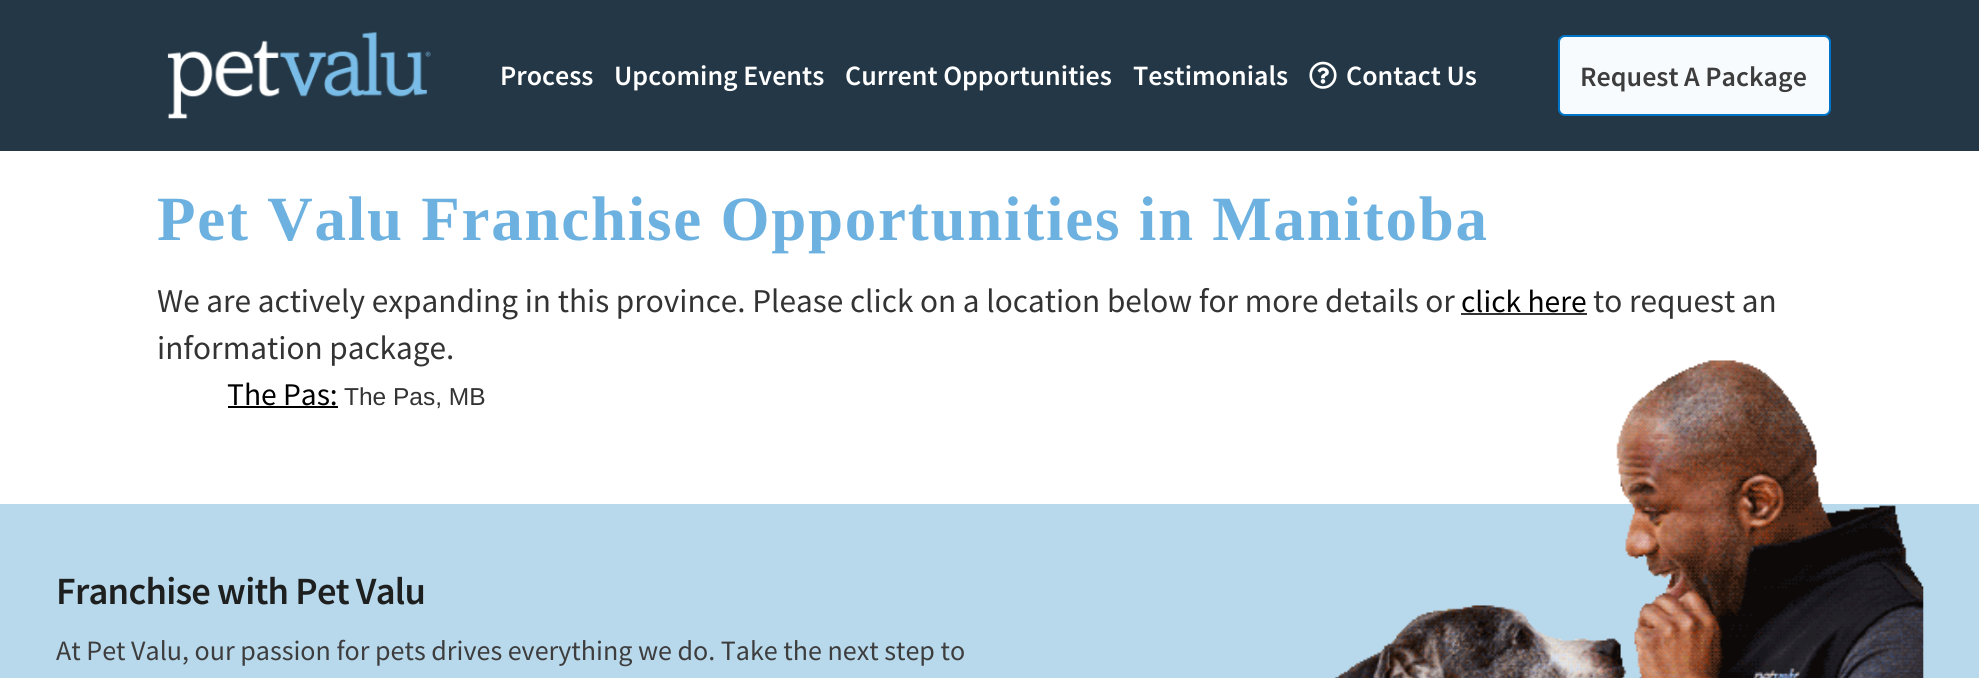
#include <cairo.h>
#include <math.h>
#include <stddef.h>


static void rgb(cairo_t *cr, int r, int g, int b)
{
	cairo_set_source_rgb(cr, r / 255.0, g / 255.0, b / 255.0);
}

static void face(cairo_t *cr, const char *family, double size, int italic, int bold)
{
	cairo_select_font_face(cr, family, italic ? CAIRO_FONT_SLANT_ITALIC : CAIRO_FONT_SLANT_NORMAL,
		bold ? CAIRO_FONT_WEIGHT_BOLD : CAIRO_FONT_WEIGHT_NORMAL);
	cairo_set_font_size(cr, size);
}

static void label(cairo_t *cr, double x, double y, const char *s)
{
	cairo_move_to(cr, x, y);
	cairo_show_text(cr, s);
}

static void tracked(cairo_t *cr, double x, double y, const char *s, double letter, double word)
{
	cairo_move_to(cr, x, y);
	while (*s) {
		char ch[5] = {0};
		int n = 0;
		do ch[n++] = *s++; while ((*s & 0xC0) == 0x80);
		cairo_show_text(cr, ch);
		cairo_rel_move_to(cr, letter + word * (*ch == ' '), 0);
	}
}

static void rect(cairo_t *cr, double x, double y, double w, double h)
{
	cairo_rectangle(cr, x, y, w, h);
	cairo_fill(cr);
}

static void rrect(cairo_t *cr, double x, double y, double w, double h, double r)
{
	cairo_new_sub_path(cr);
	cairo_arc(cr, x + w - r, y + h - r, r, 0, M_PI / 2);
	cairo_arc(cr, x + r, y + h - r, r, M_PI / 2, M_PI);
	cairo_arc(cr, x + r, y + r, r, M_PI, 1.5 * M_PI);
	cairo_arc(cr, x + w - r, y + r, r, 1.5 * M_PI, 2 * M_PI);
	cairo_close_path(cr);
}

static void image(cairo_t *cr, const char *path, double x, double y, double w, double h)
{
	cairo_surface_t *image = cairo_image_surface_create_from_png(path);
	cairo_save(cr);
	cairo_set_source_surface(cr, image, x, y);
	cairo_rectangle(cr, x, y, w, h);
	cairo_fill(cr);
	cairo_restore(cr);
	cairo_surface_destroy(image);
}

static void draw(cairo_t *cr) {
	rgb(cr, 255, 255, 255);
	cairo_paint(cr);
	rgb(cr, 36, 55, 70);
	rect(cr, 0, 0, 1979, 151);
	image(cr, "image0.png", 167, 31, 264, 88);
	face(cr, "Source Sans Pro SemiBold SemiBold", 28, 0, 0);
	rgb(cr, 255, 255, 255);
	label(cr, 500, 85, "Process");
	label(cr, 614, 85, "Upcoming Events");
	label(cr, 845, 85, "Current Opportunities");
	label(cr, 1133, 85, "Testimonials");
	image(cr, "image1.png", 1309, 61, 28, 28);
	label(cr, 1346, 85, "Contact Us");
	rgb(cr, 248, 251, 253);
	rrect(cr, 1559, 36, 271, 79, 6);
	cairo_fill_preserve(cr);
	rgb(cr, 0, 117, 199);
	cairo_stroke(cr);
	rgb(cr, 61, 61, 62);
	label(cr, 1580, 86, "Request A Package");
	cairo_save(cr);
	cairo_rectangle(cr, 158, 149, 1666, 355);
	cairo_clip(cr);
	face(cr, "Tinos", 63, 0, 1);
	rgb(cr, 108, 177, 223);
	tracked(cr, 157, 240, "Pet Valu Franchise Opportunities in Manitoba", 1.75, 0);
	face(cr, "Source Sans Pro", 33.25, 0, 0);
	rgb(cr, 51, 51, 51);
	label(cr, 157, 312, "We are actively expanding in this province. Please click on a location below for more details or");
	cairo_restore(cr);
	face(cr, "Source Sans Pro", 31.5, 0, 0);
	rgb(cr, 0, 0, 0);
	label(cr, 1461, 312, "click here");
	rgb(cr, 51, 51, 51);
	rect(cr, 1461, 313, 126, 2);
	face(cr, "Source Sans Pro", 33.25, 0, 0);
	label(cr, 1593, 312, "to request an");
	label(cr, 157, 359, "information package.");
	face(cr, "Source Sans Pro", 31.5, 0, 0);
	rgb(cr, 0, 0, 0);
	label(cr, 227, 405, "The Pas:");
	rect(cr, 228, 406, 110, 2);
	face(cr, "Liberation Sans", 24.5, 0, 0);
	rgb(cr, 51, 51, 51);
	label(cr, 344, 405, "The Pas, MB");
	rgb(cr, 184, 216, 235);
	rect(cr, 0, 504, 1979, 174);
	face(cr, "Source Sans Pro SemiBold SemiBold", 38.5, 0, 0);
	rgb(cr, 30, 31, 31);
	tracked(cr, 56, 604, "Franchise with Pet Valu", -0.75, 0);
	face(cr, "Source Sans Pro", 28, 0, 0);
	rgb(cr, 61, 61, 62);
	label(cr, 56, 660, "At Pet Valu, our passion for pets drives everything we do. Take the next step to");
	image(cr, "image2.png", 1334, 360, 590, 318);
}

int main(void) {
	cairo_surface_t *surface = cairo_image_surface_create(CAIRO_FORMAT_RGB24, 1979, 678);
	cairo_t *cr = cairo_create(surface);
	cairo_font_options_t *options = cairo_font_options_create();
	cairo_font_options_set_hint_metrics(options, CAIRO_HINT_METRICS_OFF);
	cairo_font_options_set_hint_style(options, CAIRO_HINT_STYLE_NONE);
	cairo_set_font_options(cr, options);
	cairo_set_miter_limit(cr, 4);
	draw(cr);
	cairo_surface_write_to_png(surface, "render.png");
	cairo_font_options_destroy(options);
	cairo_destroy(cr);
	cairo_surface_destroy(surface);
	return 0;
}
